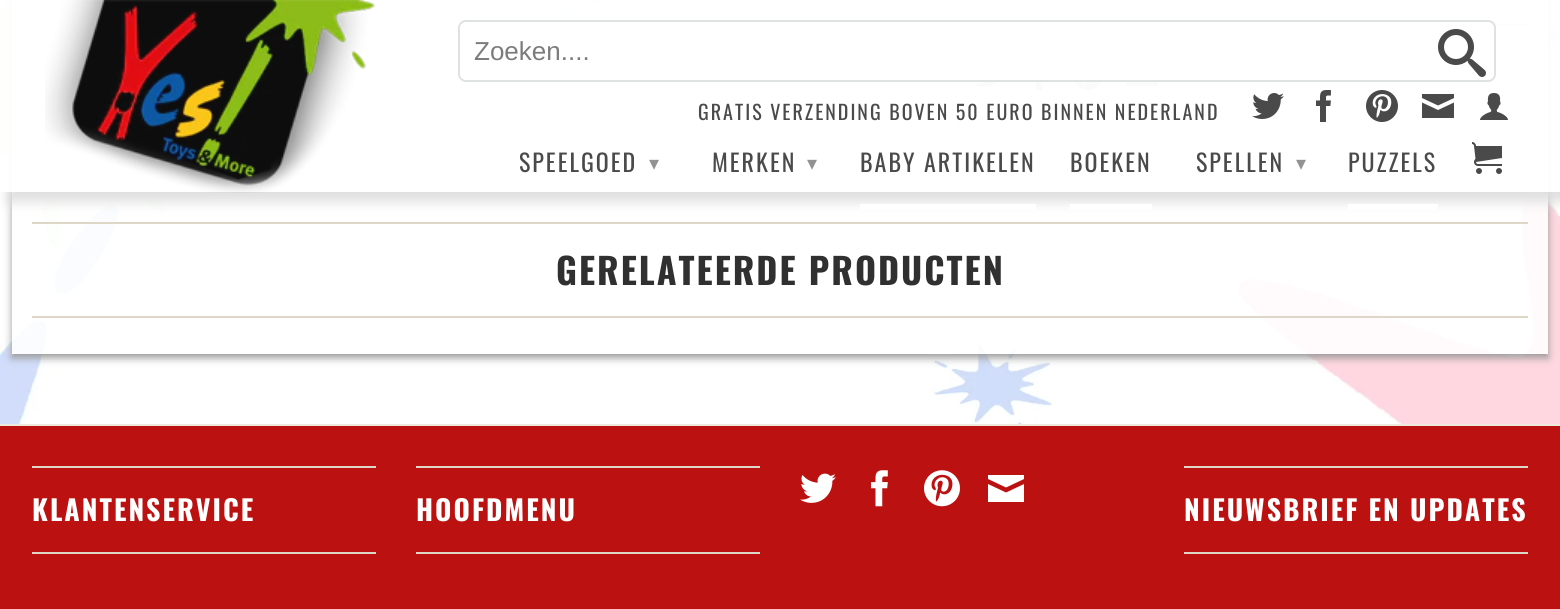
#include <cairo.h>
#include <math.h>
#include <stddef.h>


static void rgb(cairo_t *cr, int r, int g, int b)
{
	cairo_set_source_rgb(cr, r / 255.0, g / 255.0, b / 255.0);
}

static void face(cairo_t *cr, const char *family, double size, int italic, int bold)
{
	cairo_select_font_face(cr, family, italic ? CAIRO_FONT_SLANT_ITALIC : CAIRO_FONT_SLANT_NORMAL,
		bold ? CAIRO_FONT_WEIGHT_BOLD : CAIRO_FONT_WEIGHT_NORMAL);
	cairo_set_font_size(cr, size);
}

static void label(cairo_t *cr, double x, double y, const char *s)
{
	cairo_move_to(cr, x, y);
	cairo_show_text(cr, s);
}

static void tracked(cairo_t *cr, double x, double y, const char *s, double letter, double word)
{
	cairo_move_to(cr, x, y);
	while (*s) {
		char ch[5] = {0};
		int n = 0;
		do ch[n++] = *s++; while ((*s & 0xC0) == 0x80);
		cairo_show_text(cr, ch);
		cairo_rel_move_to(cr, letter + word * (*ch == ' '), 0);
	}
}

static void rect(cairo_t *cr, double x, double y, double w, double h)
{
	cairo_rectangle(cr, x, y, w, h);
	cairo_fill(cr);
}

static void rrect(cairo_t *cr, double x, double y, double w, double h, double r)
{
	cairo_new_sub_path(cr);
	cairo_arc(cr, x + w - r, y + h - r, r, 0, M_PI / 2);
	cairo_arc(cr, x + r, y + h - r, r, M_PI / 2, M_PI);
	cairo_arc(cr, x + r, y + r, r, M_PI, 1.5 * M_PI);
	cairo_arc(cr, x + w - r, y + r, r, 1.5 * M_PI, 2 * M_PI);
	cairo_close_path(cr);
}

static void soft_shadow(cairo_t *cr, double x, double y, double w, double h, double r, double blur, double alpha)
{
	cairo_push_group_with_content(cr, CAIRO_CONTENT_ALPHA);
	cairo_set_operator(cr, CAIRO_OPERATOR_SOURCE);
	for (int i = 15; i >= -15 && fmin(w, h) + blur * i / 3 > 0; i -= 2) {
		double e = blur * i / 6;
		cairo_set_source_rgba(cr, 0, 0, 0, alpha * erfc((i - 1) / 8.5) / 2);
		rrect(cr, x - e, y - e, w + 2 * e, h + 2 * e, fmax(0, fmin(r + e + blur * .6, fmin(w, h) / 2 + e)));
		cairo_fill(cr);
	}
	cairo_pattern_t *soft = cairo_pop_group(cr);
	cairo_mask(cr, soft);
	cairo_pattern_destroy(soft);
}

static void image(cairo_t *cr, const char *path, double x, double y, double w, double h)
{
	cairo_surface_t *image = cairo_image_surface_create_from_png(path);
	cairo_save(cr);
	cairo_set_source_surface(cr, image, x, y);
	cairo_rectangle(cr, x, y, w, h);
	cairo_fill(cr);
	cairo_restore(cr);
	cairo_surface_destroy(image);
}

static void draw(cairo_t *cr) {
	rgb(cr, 255, 255, 255);
	cairo_paint(cr);
	image(cr, "image0.png", 0, 0, 1560, 424);
	cairo_save(cr);
	cairo_set_fill_rule(cr, CAIRO_FILL_RULE_EVEN_ODD);
	cairo_new_path(cr);
	cairo_move_to(cr, 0, 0);
	cairo_line_to(cr, 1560, 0);
	cairo_line_to(cr, 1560, 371);
	cairo_line_to(cr, 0, 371);
	cairo_close_path(cr);
	cairo_move_to(cr, 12, -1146);
	cairo_line_to(cr, 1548, -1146);
	cairo_line_to(cr, 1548, 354);
	cairo_line_to(cr, 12, 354);
	cairo_close_path(cr);
	cairo_clip(cr);
	rgb(cr, 153, 153, 153);
	soft_shadow(cr, 12, -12, 1536, 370, 0, 4, 1);
	cairo_restore(cr);
	cairo_set_source_rgba(cr, 1, 1, 1, 0.9);
	rect(cr, 12, 0, 1536, 354);
	image(cr, "image8.png", 560, 0, 83, 14);
	rgb(cr, 222, 214, 199);
	rect(cr, 896, 24, 632, 2);
	image(cr, "image9.png", 974, 61, 32, 26);
	image(cr, "image10.png", 1032, 58, 15, 32);
	image(cr, "image11.png", 1072, 58, 32, 32);
	rgb(cr, 157, 166, 174);
	cairo_new_path(cr);
	cairo_move_to(cr, 1142, 73.5);
	cairo_line_to(cr, 1126, 66);
	cairo_line_to(cr, 1126, 62);
	cairo_line_to(cr, 1158, 62);
	cairo_line_to(cr, 1158, 66);
	cairo_close_path(cr);
	cairo_move_to(cr, 1142, 78);
	cairo_line_to(cr, 1158, 70.5);
	cairo_line_to(cr, 1158, 86);
	cairo_line_to(cr, 1126, 86);
	cairo_line_to(cr, 1126, 70.5);
	cairo_close_path(cr);
	cairo_fill(cr);
	cairo_save(cr);
	cairo_rectangle(cr, 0, 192, 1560, 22);
	cairo_clip(cr);
	rgb(cr, 221, 221, 221);
	soft_shadow(cr, 8, 10, 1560, 192, 0, 6, 0.95);
	cairo_restore(cr);
	cairo_set_source_rgba(cr, 1, 1, 1, 0.95);
	rect(cr, 0, 0, 1560, 192);
	image(cr, "image1.png", 45, 0, 330, 193);
	rrect(cr, 459, 21, 1036, 60, 7);
	cairo_fill_preserve(cr);
	rgb(cr, 222, 226, 226);
	cairo_stroke(cr);
	face(cr, "Liberation Sans", 26, 0, 0);
	rgb(cr, 124, 124, 124);
	label(cr, 474, 60, "Zoeken....");
	image(cr, "image2.png", 1438, 29, 48, 48);
	face(cr, "Oswald", 20, 0, 0);
	rgb(cr, 74, 74, 74);
	tracked(cr, 698, 120, "GRATIS VERZENDING BOVEN 50 EURO BINNEN NEDERLAND", 2, 0);
	image(cr, "image3.png", 1252, 93, 32, 26);
	image(cr, "image4.png", 1316, 90, 15, 32);
	image(cr, "image5.png", 1366, 90, 32, 32);
	cairo_new_path(cr);
	cairo_move_to(cr, 1438, 105.5);
	cairo_line_to(cr, 1422, 98);
	cairo_line_to(cr, 1422, 94);
	cairo_line_to(cr, 1454, 94);
	cairo_line_to(cr, 1454, 98);
	cairo_close_path(cr);
	cairo_move_to(cr, 1438, 110);
	cairo_line_to(cr, 1454, 102.5);
	cairo_line_to(cr, 1454, 118);
	cairo_line_to(cr, 1422, 118);
	cairo_line_to(cr, 1422, 102.5);
	cairo_close_path(cr);
	cairo_fill(cr);
	image(cr, "image6.png", 1480, 93, 28, 27);
	face(cr, "Oswald", 24, 0, 0);
	tracked(cr, 519, 172, "SPEELGOED", 2, 0);
	face(cr, "DejaVu Sans", 20, 0, 0);
	rgb(cr, 146, 146, 146);
	tracked(cr, 649, 170, "▾", 2, 0);
	face(cr, "Oswald", 24, 0, 0);
	rgb(cr, 74, 74, 74);
	tracked(cr, 712, 172, "MERKEN", 2, 0);
	face(cr, "DejaVu Sans", 20, 0, 0);
	rgb(cr, 146, 146, 146);
	tracked(cr, 807, 170, "▾", 2, 0);
	face(cr, "Oswald", 24, 0, 0);
	rgb(cr, 74, 74, 74);
	tracked(cr, 860, 172, "BABY ARTIKELEN", 2, 0);
	rgb(cr, 255, 255, 255);
	rect(cr, 860, 204, 176, 6);
	rgb(cr, 74, 74, 74);
	tracked(cr, 1070, 172, "BOEKEN", 2, 0);
	rgb(cr, 255, 255, 255);
	rect(cr, 1070, 204, 82, 6);
	rgb(cr, 74, 74, 74);
	tracked(cr, 1196, 172, "SPELLEN", 2, 0);
	face(cr, "DejaVu Sans", 20, 0, 0);
	rgb(cr, 146, 146, 146);
	tracked(cr, 1296, 170, "▾", 2, 0);
	face(cr, "Oswald", 24, 0, 0);
	rgb(cr, 74, 74, 74);
	tracked(cr, 1348, 172, "PUZZELS", 2, 0);
	rgb(cr, 255, 255, 255);
	rect(cr, 1348, 204, 90, 6);
	image(cr, "image7.png", 1472, 142, 30, 32);
	rgb(cr, 222, 214, 199);
	rect(cr, 32, 222, 1496, 2);
	rect(cr, 32, 316, 1496, 2);
	face(cr, "Oswald", 36, 0, 1);
	rgb(cr, 48, 48, 48);
	tracked(cr, 556, 285, "GERELATEERDE PRODUCTEN", 2, 0);
	rgb(cr, 188, 17, 17);
	rect(cr, 0, 426, 1560, 183);
	rgb(cr, 237, 233, 221);
	rect(cr, 0, 424, 1560, 2);
	image(cr, "image12.png", 800, 473, 36, 30);
	image(cr, "image13.png", 871, 470, 17, 37);
	image(cr, "image14.png", 924, 470, 36, 37);
	rgb(cr, 255, 255, 255);
	cairo_new_path(cr);
	cairo_move_to(cr, 1006, 487.5);
	cairo_line_to(cr, 988, 479);
	cairo_line_to(cr, 988, 475);
	cairo_line_to(cr, 1024, 475);
	cairo_line_to(cr, 1024, 479);
	cairo_close_path(cr);
	cairo_move_to(cr, 1006, 492.5);
	cairo_line_to(cr, 1024, 484);
	cairo_line_to(cr, 1024, 502);
	cairo_line_to(cr, 988, 502);
	cairo_line_to(cr, 988, 484);
	cairo_close_path(cr);
	cairo_fill(cr);
	rgb(cr, 222, 214, 199);
	rect(cr, 32, 466, 344, 2);
	rect(cr, 32, 552, 344, 2);
	face(cr, "Oswald", 28, 0, 1);
	rgb(cr, 255, 255, 255);
	tracked(cr, 32, 521, "KLANTENSERVICE", 2, 0);
	rgb(cr, 222, 214, 199);
	rect(cr, 416, 466, 344, 2);
	rect(cr, 416, 552, 344, 2);
	rgb(cr, 255, 255, 255);
	tracked(cr, 416, 521, "HOOFDMENU", 2, 0);
	rgb(cr, 222, 214, 199);
	rect(cr, 1184, 466, 344, 2);
	rect(cr, 1184, 552, 344, 2);
	rgb(cr, 255, 255, 255);
	tracked(cr, 1184, 521, "NIEUWSBRIEF EN UPDATES", 2, 0);
}

int main(void) {
	cairo_surface_t *surface = cairo_image_surface_create(CAIRO_FORMAT_RGB24, 1560, 609);
	cairo_t *cr = cairo_create(surface);
	cairo_font_options_t *options = cairo_font_options_create();
	cairo_font_options_set_hint_metrics(options, CAIRO_HINT_METRICS_OFF);
	cairo_font_options_set_hint_style(options, CAIRO_HINT_STYLE_NONE);
	cairo_set_font_options(cr, options);
	cairo_set_miter_limit(cr, 4);
	draw(cr);
	cairo_surface_write_to_png(surface, "render.png");
	cairo_font_options_destroy(options);
	cairo_destroy(cr);
	cairo_surface_destroy(surface);
	return 0;
}
